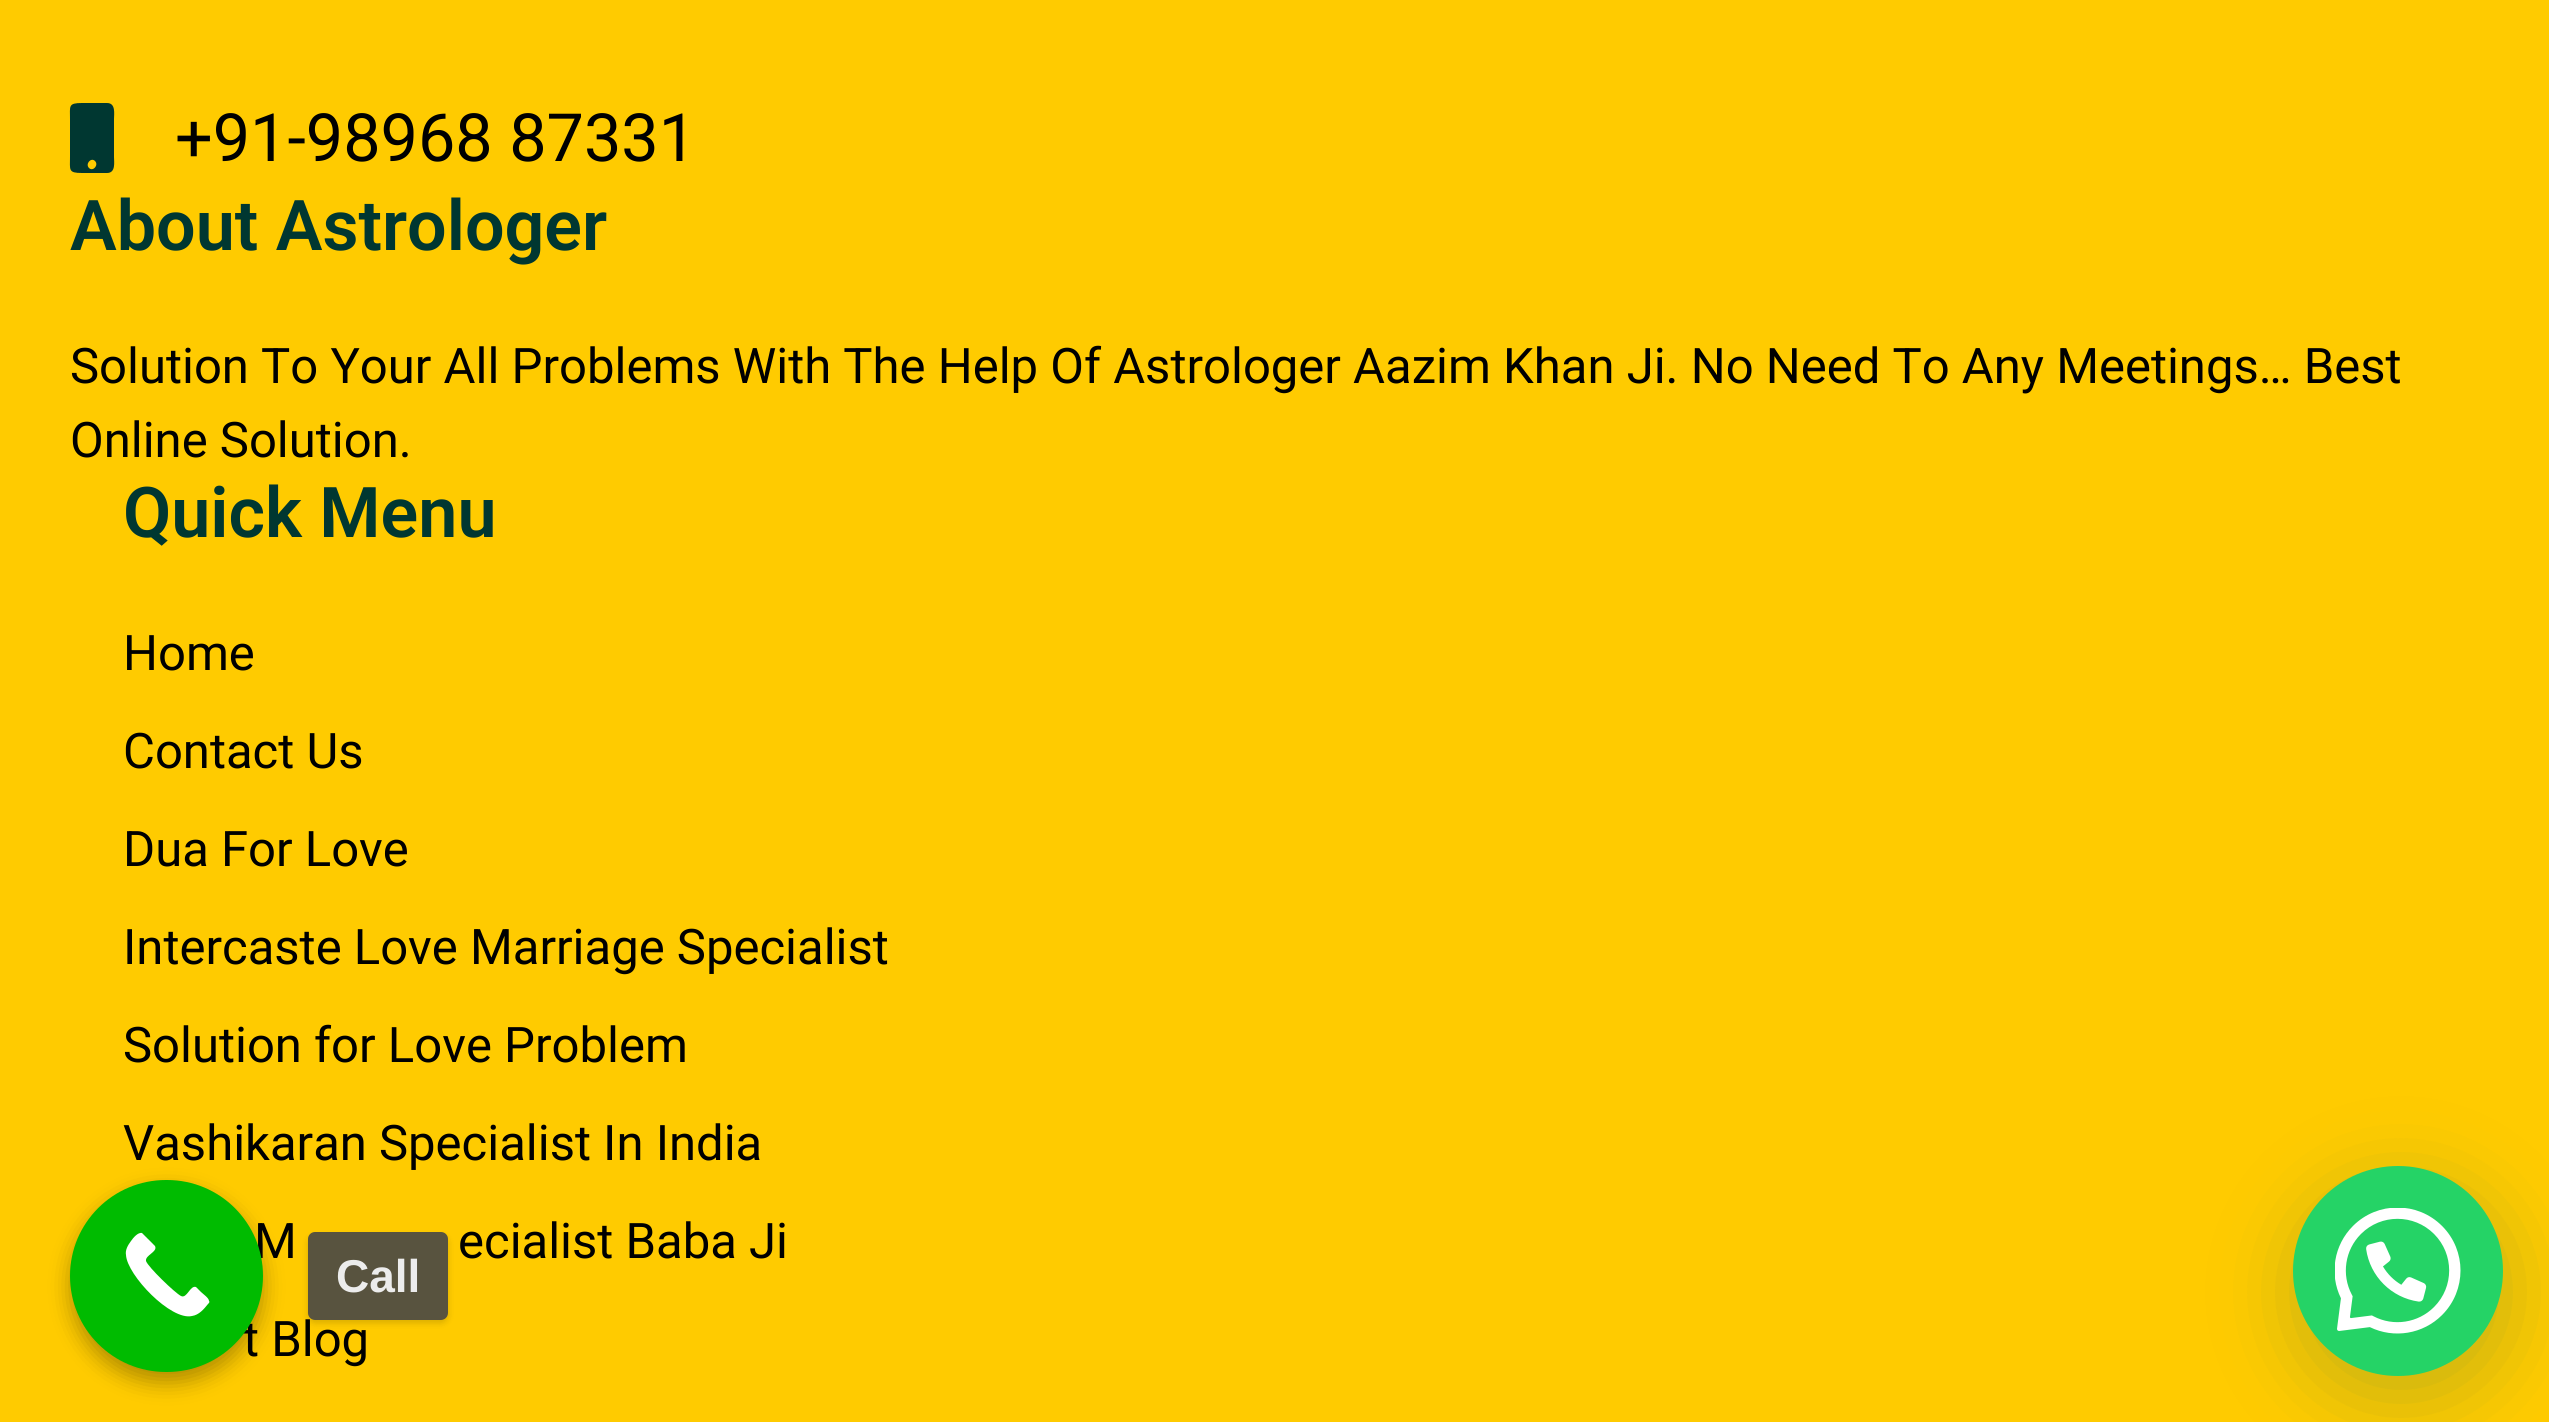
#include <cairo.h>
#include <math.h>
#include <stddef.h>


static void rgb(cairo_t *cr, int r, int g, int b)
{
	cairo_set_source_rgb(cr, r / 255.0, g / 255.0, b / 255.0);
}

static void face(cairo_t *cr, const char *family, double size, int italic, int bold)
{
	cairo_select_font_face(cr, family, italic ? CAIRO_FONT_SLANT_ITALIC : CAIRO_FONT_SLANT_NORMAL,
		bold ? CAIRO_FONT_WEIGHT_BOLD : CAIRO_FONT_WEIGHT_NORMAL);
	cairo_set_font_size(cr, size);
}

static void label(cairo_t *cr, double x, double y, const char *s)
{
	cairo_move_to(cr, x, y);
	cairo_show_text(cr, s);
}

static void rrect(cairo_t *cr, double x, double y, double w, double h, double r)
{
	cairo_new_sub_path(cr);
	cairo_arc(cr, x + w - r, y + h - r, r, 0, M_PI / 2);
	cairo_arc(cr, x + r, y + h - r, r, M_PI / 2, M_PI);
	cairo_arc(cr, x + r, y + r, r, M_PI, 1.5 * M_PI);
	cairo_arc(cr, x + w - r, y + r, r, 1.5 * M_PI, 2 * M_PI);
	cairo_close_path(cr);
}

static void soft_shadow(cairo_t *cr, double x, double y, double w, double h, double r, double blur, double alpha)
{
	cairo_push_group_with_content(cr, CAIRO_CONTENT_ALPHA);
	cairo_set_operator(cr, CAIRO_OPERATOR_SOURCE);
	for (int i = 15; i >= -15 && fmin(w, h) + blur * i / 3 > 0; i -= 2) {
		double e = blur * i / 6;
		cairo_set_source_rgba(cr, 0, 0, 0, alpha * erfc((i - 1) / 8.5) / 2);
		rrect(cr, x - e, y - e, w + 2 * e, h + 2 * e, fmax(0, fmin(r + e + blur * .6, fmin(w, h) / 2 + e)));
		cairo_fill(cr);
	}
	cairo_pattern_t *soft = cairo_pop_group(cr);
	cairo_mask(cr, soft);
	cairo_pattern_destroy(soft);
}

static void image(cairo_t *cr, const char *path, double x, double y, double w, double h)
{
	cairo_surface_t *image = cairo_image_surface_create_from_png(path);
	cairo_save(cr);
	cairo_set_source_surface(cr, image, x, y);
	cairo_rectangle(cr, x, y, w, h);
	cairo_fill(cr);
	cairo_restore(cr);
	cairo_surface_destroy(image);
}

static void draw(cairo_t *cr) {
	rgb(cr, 255, 203, 0);
	cairo_paint(cr);
	rgb(cr, 0, 55, 49);
	cairo_new_path(cr);
	cairo_move_to(cr, 107, 103);
	cairo_curve_to(cr, 116, 103, 114, 114, 114, 119);
	cairo_line_to(cr, 114, 157);
	cairo_curve_to(cr, 114, 162, 116, 173, 107, 173);
	cairo_line_to(cr, 82, 173);
	cairo_curve_to(cr, 68, 173, 70, 170, 70, 157);
	cairo_line_to(cr, 70, 119);
	cairo_curve_to(cr, 70, 106, 68, 103, 82, 103);
	cairo_close_path(cr);
	cairo_move_to(cr, 89, 168);
	cairo_curve_to(cr, 93, 172, 99, 165, 95, 161);
	cairo_curve_to(cr, 91, 157, 85, 164, 89, 168);
	cairo_close_path(cr);
	cairo_fill(cr);
	face(cr, "Roboto", 66.5, 0, 0);
	rgb(cr, 0, 0, 0);
	label(cr, 175, 161, "+91-98968 87331");
	face(cr, "Roboto SemiBold", 70, 0, 0);
	rgb(cr, 0, 55, 49);
	label(cr, 70, 250, "About Astrologer");
	face(cr, "Roboto", 49, 0, 0);
	rgb(cr, 0, 0, 0);
	label(cr, 70, 383, "Solution To Your All Problems With The Help Of Astrologer Aazim Khan Ji. No Need To Any Meetings… Best");
	label(cr, 70, 457, "Online Solution.");
	face(cr, "Roboto SemiBold", 70, 0, 0);
	rgb(cr, 0, 55, 49);
	label(cr, 123, 537, "Quick Menu");
	face(cr, "Roboto", 49, 0, 0);
	rgb(cr, 0, 0, 0);
	label(cr, 123, 670, "Home");
	label(cr, 123, 768, "Contact Us");
	label(cr, 123, 866, "Dua For Love");
	label(cr, 123, 964, "Intercaste Love Marriage Specialist");
	label(cr, 123, 1062, "Solution for Love Problem");
	label(cr, 123, 1160, "Vashikaran Specialist In India");
	label(cr, 254, 1258, "M");
	label(cr, 458, 1258, "ecialist Baba Ji");
	label(cr, 243, 1356, "t Blog");
	rgb(cr, 0, 0, 0);
	soft_shadow(cr, 70, 1190, 193, 193, 96.5, 10.5, 0.3);
	rgb(cr, 0, 187, 0);
	rrect(cr, 70, 1180, 193, 192, 96);
	cairo_fill(cr);
	rgb(cr, 255, 255, 255);
	cairo_new_path(cr);
	cairo_move_to(cr, 208, 1304);
	cairo_curve_to(cr, 204, 1309, 199, 1315, 192, 1316);
	cairo_curve_to(cr, 171, 1321, 127, 1275, 126, 1255);
	cairo_curve_to(cr, 125, 1250, 128, 1245, 131, 1241);
	cairo_curve_to(cr, 133, 1238, 138, 1232, 142, 1233);
	cairo_line_to(cr, 155, 1246);
	cairo_curve_to(cr, 158, 1252, 145, 1255, 146, 1261);
	cairo_curve_to(cr, 148, 1267, 175, 1293, 181, 1296);
	cairo_curve_to(cr, 187, 1299, 190, 1285, 196, 1287);
	cairo_line_to(cr, 201, 1292);
	cairo_curve_to(cr, 203, 1294, 209, 1298, 209, 1301);
	cairo_curve_to(cr, 210, 1302, 209, 1303, 208, 1304);
	cairo_close_path(cr);
	cairo_fill(cr);
	cairo_save(cr);
	cairo_set_fill_rule(cr, CAIRO_FILL_RULE_EVEN_ODD);
	cairo_new_path(cr);
	cairo_move_to(cr, 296, 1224);
	cairo_line_to(cr, 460, 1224);
	cairo_line_to(cr, 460, 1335);
	cairo_line_to(cr, 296, 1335);
	cairo_close_path(cr);
	cairo_move_to(cr, 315, 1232);
	cairo_line_to(cr, 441, 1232);
	cairo_curve_to(cr, 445, 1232, 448, 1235, 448, 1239);
	cairo_line_to(cr, 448, 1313);
	cairo_curve_to(cr, 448, 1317, 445, 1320, 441, 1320);
	cairo_line_to(cr, 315, 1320);
	cairo_curve_to(cr, 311, 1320, 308, 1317, 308, 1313);
	cairo_line_to(cr, 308, 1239);
	cairo_curve_to(cr, 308, 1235, 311, 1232, 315, 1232);
	cairo_close_path(cr);
	cairo_clip(cr);
	rgb(cr, 0, 0, 0);
	soft_shadow(cr, 308, 1236, 140, 87, 7, 3.5, 0.15);
	cairo_restore(cr);
	cairo_set_source_rgba(cr, 0.275, 0.275, 0.275, 0.9);
	rrect(cr, 308, 1232, 140, 88, 7);
	cairo_fill(cr);
	face(cr, "Liberation Sans", 46, 0, 1);
	rgb(cr, 236, 236, 236);
	label(cr, 336, 1292, "Call");
	rgb(cr, 7, 94, 84);
	soft_shadow(cr, 2296, 1187, 210, 210, 105, 42, 0.24);
	rgb(cr, 37, 211, 102);
	cairo_arc(cr, 2398, 1271, 105, 0, 2 * M_PI);
	cairo_fill(cr);
	image(cr, "image0.png", 2335, 1208, 126, 126);
}

int main(void) {
	cairo_surface_t *surface = cairo_image_surface_create(CAIRO_FORMAT_RGB24, 2549, 1422);
	cairo_t *cr = cairo_create(surface);
	cairo_font_options_t *options = cairo_font_options_create();
	cairo_font_options_set_hint_metrics(options, CAIRO_HINT_METRICS_OFF);
	cairo_font_options_set_hint_style(options, CAIRO_HINT_STYLE_NONE);
	cairo_set_font_options(cr, options);
	cairo_set_miter_limit(cr, 4);
	draw(cr);
	cairo_surface_write_to_png(surface, "render.png");
	cairo_font_options_destroy(options);
	cairo_destroy(cr);
	cairo_surface_destroy(surface);
	return 0;
}
